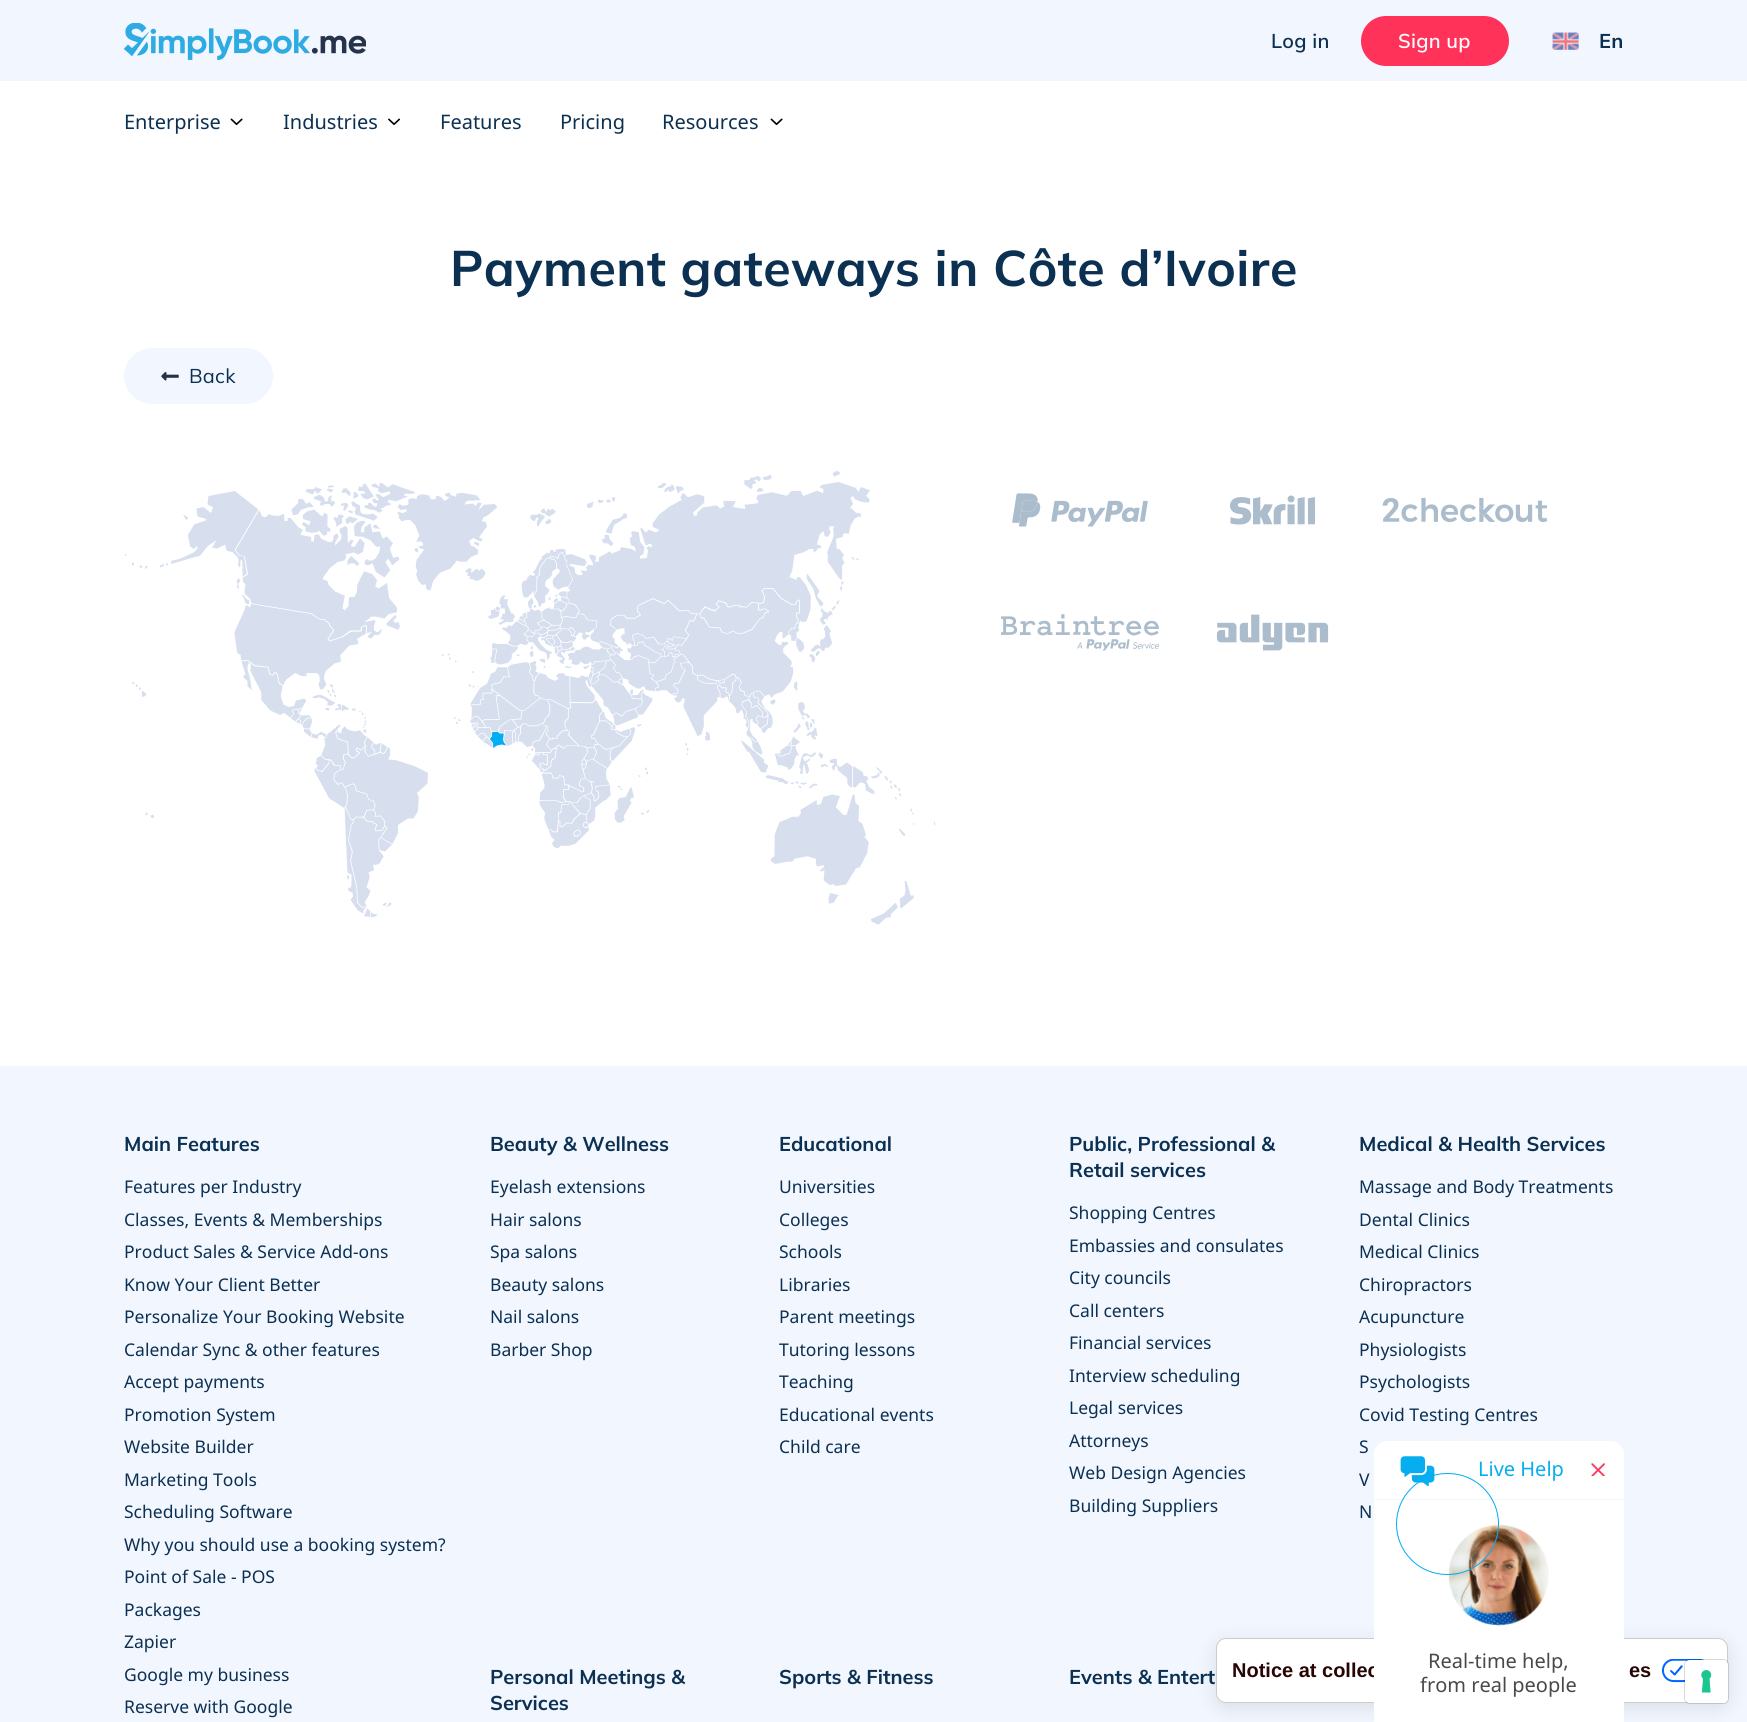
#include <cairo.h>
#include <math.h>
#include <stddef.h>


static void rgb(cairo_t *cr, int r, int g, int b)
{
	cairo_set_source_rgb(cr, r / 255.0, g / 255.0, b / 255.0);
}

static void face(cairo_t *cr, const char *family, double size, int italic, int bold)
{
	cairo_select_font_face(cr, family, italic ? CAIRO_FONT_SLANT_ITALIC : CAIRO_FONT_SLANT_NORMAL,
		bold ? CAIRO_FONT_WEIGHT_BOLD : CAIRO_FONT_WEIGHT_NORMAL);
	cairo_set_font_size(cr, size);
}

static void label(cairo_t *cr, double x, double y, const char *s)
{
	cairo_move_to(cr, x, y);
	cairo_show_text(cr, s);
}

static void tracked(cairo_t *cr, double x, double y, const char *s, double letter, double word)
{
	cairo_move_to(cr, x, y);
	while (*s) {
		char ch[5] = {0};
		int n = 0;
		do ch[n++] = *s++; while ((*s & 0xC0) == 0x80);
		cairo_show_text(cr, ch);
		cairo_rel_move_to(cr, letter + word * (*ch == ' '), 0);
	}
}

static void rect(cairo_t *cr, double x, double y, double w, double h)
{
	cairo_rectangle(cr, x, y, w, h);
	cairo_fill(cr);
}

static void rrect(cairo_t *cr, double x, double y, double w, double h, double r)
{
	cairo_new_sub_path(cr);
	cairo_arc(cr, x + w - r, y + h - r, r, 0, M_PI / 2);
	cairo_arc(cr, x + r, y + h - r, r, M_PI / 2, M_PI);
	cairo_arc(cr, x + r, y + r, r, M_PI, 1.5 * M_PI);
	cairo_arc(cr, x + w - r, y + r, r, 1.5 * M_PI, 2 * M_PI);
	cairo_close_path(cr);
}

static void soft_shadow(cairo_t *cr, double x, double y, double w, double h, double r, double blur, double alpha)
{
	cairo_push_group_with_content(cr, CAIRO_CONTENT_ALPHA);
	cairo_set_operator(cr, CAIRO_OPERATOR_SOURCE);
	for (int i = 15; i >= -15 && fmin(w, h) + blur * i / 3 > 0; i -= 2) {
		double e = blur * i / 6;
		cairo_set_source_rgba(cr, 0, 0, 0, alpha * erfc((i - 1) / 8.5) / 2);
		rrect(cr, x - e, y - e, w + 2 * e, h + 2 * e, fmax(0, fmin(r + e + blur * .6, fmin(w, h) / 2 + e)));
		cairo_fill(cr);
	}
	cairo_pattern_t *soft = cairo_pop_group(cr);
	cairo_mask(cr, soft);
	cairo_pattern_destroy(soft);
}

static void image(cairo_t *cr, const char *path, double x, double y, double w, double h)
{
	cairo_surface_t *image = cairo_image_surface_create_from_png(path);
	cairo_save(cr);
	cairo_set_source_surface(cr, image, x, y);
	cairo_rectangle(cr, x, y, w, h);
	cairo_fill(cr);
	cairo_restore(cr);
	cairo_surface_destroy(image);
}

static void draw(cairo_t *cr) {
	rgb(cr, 255, 255, 255);
	cairo_paint(cr);
	rgb(cr, 241, 246, 255);
	rect(cr, 0, 0, 1747, 81);
	image(cr, "image0.png", 124, 23, 242, 37);
	face(cr, "Mulish SemiBold", 20, 0, 0);
	rgb(cr, 11, 48, 82);
	tracked(cr, 1271, 48, "Log in", 0.25, 0);
	rgb(cr, 255, 50, 89);
	rrect(cr, 1361, 16, 148, 50, 25);
	cairo_fill(cr);
	rgb(cr, 255, 255, 255);
	tracked(cr, 1398, 48, "Sign up", 0.25, 0);
	image(cr, "image1.png", 1552, 32, 27, 18);
	face(cr, "Mulish", 20, 0, 1);
	rgb(cr, 11, 48, 82);
	tracked(cr, 1599, 48, "En", 0.25, 0);
	face(cr, "Noto Sans", 20, 0, 0);
	label(cr, 124, 129, "Enterprise");
	image(cr, "image2.png", 230, 118, 13, 7);
	label(cr, 283, 129, "Industries");
	image(cr, "image3.png", 388, 118, 12, 7);
	label(cr, 440, 129, "Features");
	label(cr, 560, 129, "Pricing");
	label(cr, 662, 129, "Resources");
	image(cr, "image2.png", 770, 118, 13, 7);
	face(cr, "Mulish", 50, 0, 1);
	tracked(cr, 450, 286, "Payment gateways in Côte d’Ivoire", 0.5, 0);
	rgb(cr, 241, 246, 255);
	rrect(cr, 124, 348, 149, 56, 28);
	cairo_fill(cr);
	image(cr, "image4.png", 161, 372, 18, 9);
	face(cr, "Mulish", 20, 0, 0);
	rgb(cr, 11, 48, 82);
	tracked(cr, 189, 383, "Back", 0.25, 0);
	image(cr, "image5.png", 125, 471, 811, 454);
	image(cr, "image6.png", 1012, 493, 136, 34);
	image(cr, "image7.png", 1230, 495, 85, 30);
	image(cr, "image8.png", 1382, 497, 166, 26);
	image(cr, "image9.png", 1001, 614, 158, 37);
	image(cr, "image10.png", 1216, 614, 113, 37);
	rgb(cr, 241, 246, 255);
	rect(cr, 0, 1066, 1747, 656);
	face(cr, "Mulish", 20, 0, 1);
	rgb(cr, 11, 48, 82);
	label(cr, 124, 1151, "Main Features");
	face(cr, "Noto Sans", 17.5, 0, 0);
	label(cr, 124, 1193, "Features per Industry");
	label(cr, 124, 1226, "Classes, Events & Memberships");
	label(cr, 124, 1258, "Product Sales & Service Add-ons");
	label(cr, 124, 1291, "Know Your Client Better");
	label(cr, 124, 1323, "Personalize Your Booking Website");
	label(cr, 124, 1356, "Calendar Sync & other features");
	label(cr, 124, 1388, "Accept payments");
	label(cr, 124, 1421, "Promotion System");
	label(cr, 124, 1453, "Website Builder");
	label(cr, 124, 1486, "Marketing Tools");
	label(cr, 124, 1518, "Scheduling Software");
	label(cr, 124, 1551, "Why you should use a booking system?");
	label(cr, 124, 1583, "Point of Sale - POS");
	label(cr, 124, 1616, "Packages");
	label(cr, 124, 1648, "Zapier");
	label(cr, 124, 1681, "Google my business");
	label(cr, 124, 1713, "Reserve with Google");
	face(cr, "Mulish", 20, 0, 1);
	label(cr, 490, 1151, "Beauty & Wellness");
	face(cr, "Noto Sans", 17.5, 0, 0);
	label(cr, 490, 1193, "Eyelash extensions");
	label(cr, 490, 1226, "Hair salons");
	label(cr, 490, 1258, "Spa salons");
	label(cr, 490, 1291, "Beauty salons");
	label(cr, 490, 1323, "Nail salons");
	label(cr, 490, 1356, "Barber Shop");
	face(cr, "Mulish", 20, 0, 1);
	label(cr, 779, 1151, "Educational");
	face(cr, "Noto Sans", 17.5, 0, 0);
	label(cr, 779, 1193, "Universities");
	label(cr, 779, 1226, "Colleges");
	label(cr, 779, 1258, "Schools");
	label(cr, 779, 1291, "Libraries");
	label(cr, 779, 1323, "Parent meetings");
	label(cr, 779, 1356, "Tutoring lessons");
	label(cr, 779, 1388, "Teaching");
	label(cr, 779, 1421, "Educational events");
	label(cr, 779, 1453, "Child care");
	face(cr, "Mulish", 20, 0, 1);
	label(cr, 1069, 1151, "Public, Professional &");
	label(cr, 1069, 1177, "Retail services");
	face(cr, "Noto Sans", 17.5, 0, 0);
	label(cr, 1069, 1219, "Shopping Centres");
	label(cr, 1069, 1252, "Embassies and consulates");
	label(cr, 1069, 1284, "City councils");
	label(cr, 1069, 1317, "Call centers");
	label(cr, 1069, 1349, "Financial services");
	label(cr, 1069, 1382, "Interview scheduling");
	label(cr, 1069, 1414, "Legal services");
	label(cr, 1069, 1447, "Attorneys");
	label(cr, 1069, 1479, "Web Design Agencies");
	label(cr, 1069, 1512, "Building Suppliers");
	face(cr, "Mulish", 20, 0, 1);
	label(cr, 1359, 1151, "Medical & Health Services");
	face(cr, "Noto Sans", 17.5, 0, 0);
	label(cr, 1359, 1193, "Massage and Body Treatments");
	label(cr, 1359, 1226, "Dental Clinics");
	label(cr, 1359, 1258, "Medical Clinics");
	label(cr, 1359, 1291, "Chiropractors");
	label(cr, 1359, 1323, "Acupuncture");
	label(cr, 1359, 1356, "Physiologists");
	label(cr, 1359, 1388, "Psychologists");
	label(cr, 1359, 1421, "Covid Testing Centres");
	label(cr, 1359, 1453, "S");
	label(cr, 1359, 1486, "V");
	label(cr, 1359, 1518, "N");
	face(cr, "Mulish", 20, 0, 1);
	label(cr, 490, 1684, "Personal Meetings &");
	label(cr, 490, 1710, "Services");
	label(cr, 779, 1684, "Sports & Fitness");
	label(cr, 1069, 1684, "Events & Entert");
	rgb(cr, 0, 0, 0);
	soft_shadow(cr, 1216, 1643, 512, 65, 10, 10, 0.1);
	rgb(cr, 255, 255, 255);
	rrect(cr, 1216, 1638, 512, 65, 10);
	cairo_fill(cr);
	rrect(cr, 1216.5, 1638.5, 511, 64, 9.5);
	cairo_set_source_rgba(cr, 0, 0, 0, 0.2);
	cairo_set_line_width(cr, 1);
	cairo_stroke(cr);
	face(cr, "Liberation Sans", 20, 0, 1);
	rgb(cr, 40, 4, 4);
	label(cr, 1232, 1677, "Notice at collec");
	rgb(cr, 255, 255, 255);
	cairo_new_path(cr);
	cairo_move_to(cr, 1387, 1441);
	cairo_line_to(cr, 1611, 1441);
	cairo_curve_to(cr, 1618, 1441, 1624, 1447, 1624, 1454);
	cairo_line_to(cr, 1624, 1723);
	cairo_line_to(cr, 1374, 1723);
	cairo_line_to(cr, 1374, 1454);
	cairo_curve_to(cr, 1374, 1447, 1380, 1441, 1387, 1441);
	cairo_close_path(cr);
	cairo_fill(cr);
	rgb(cr, 241, 246, 255);
	rect(cr, 1374, 1499, 250, 1);
	image(cr, "image11.png", 1400, 1456, 35, 30);
	face(cr, "Noto Sans", 20, 0, 0);
	rgb(cr, 6, 173, 239);
	label(cr, 1478, 1476, "Live Help");
	image(cr, "image12.png", 1591, 1463, 14, 13);
	image(cr, "image13.png", 1448, 1524, 101, 102);
	rrect(cr, 1396.5, 1473.5, 102, 101, 50.5);
	rgb(cr, 0, 174, 242);
	cairo_stroke(cr);
	rgb(cr, 73, 73, 73);
	label(cr, 1428, 1668, "Real-time help,");
	label(cr, 1420, 1692, "from real people");
	image(cr, "image15.png", 1661, 1659, 43, 24);
	rrect(cr, 1684.5, 1659.5, 44, 44, 5.5);
	cairo_set_source_rgba(cr, 0, 0, 0, 0.15);
	cairo_stroke(cr);
	rgb(cr, 255, 255, 255);
	rrect(cr, 1685, 1660, 43, 43, 5);
	cairo_fill(cr);
	image(cr, "image14.png", 1701, 1670, 11, 23);
	face(cr, "Liberation Sans", 20, 0, 1);
	rgb(cr, 40, 4, 4);
	label(cr, 1629, 1677, "es");
}

int main(void) {
	cairo_surface_t *surface = cairo_image_surface_create(CAIRO_FORMAT_RGB24, 1747, 1722);
	cairo_t *cr = cairo_create(surface);
	cairo_font_options_t *options = cairo_font_options_create();
	cairo_font_options_set_hint_metrics(options, CAIRO_HINT_METRICS_OFF);
	cairo_font_options_set_hint_style(options, CAIRO_HINT_STYLE_NONE);
	cairo_set_font_options(cr, options);
	cairo_set_miter_limit(cr, 4);
	draw(cr);
	cairo_surface_write_to_png(surface, "render.png");
	cairo_font_options_destroy(options);
	cairo_destroy(cr);
	cairo_surface_destroy(surface);
	return 0;
}
